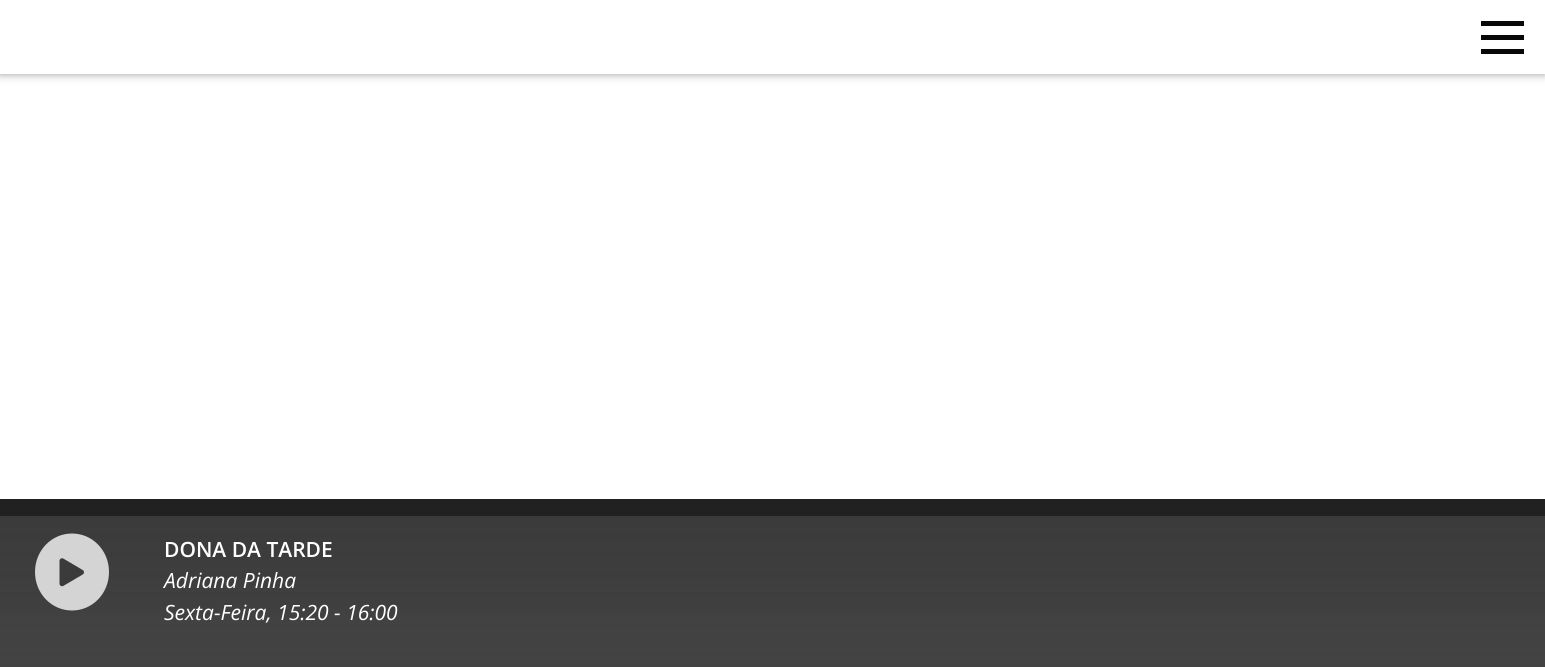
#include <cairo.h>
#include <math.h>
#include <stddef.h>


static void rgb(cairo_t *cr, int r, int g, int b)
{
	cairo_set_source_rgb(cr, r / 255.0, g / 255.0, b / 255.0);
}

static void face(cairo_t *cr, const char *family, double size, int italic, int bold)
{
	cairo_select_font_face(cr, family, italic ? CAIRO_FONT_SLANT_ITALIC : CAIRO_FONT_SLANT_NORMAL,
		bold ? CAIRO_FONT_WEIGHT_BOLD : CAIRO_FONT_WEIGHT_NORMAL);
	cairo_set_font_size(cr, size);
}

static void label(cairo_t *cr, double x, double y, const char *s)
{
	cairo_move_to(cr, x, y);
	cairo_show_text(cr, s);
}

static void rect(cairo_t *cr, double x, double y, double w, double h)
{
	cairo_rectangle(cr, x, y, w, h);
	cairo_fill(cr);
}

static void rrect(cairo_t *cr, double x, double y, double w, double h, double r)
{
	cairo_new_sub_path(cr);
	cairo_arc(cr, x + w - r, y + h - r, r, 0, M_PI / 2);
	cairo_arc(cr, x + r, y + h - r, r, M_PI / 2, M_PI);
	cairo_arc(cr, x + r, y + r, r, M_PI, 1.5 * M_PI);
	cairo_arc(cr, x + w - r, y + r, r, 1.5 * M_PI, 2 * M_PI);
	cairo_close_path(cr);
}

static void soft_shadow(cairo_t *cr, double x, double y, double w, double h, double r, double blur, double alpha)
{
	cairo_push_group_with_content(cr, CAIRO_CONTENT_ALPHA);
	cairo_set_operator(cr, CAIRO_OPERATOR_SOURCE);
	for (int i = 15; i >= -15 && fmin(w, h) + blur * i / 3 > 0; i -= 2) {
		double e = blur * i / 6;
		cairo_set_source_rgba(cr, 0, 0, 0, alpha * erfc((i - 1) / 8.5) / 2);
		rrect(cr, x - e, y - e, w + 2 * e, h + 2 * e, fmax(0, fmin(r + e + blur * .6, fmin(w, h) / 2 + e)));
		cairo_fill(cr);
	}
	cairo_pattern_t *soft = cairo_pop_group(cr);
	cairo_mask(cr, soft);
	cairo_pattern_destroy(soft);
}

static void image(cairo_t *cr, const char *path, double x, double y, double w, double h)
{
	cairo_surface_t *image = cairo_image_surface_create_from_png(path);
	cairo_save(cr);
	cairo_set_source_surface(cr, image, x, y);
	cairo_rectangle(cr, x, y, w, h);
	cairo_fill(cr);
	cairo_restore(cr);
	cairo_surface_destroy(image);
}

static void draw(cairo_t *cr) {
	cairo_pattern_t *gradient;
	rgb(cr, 255, 255, 255);
	cairo_paint(cr);
	rgb(cr, 153, 153, 153);
	soft_shadow(cr, 0, 0, 1545, 74, 0, 4.5, 1);
	rgb(cr, 255, 255, 255);
	rect(cr, 0, 0, 1545, 74);
	rgb(cr, 8, 8, 8);
	rect(cr, 1481, 21, 43, 5);
	rect(cr, 1481, 35, 43, 5);
	rect(cr, 1481, 49, 43, 5);
	rgb(cr, 33, 33, 33);
	rect(cr, 0, 499, 1545, 112);
	rgb(cr, 51, 51, 51);
	rect(cr, 0, 611, 1545, 56);
	gradient = cairo_pattern_create_linear(773, 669, 773, 516);
	cairo_pattern_add_color_stop_rgba(gradient, 0, 0.263, 0.263, 0.263, 0.98);
	cairo_pattern_add_color_stop_rgba(gradient, 1, 0.263, 0.263, 0.263, 0.75);
	cairo_set_source(cr, gradient);
	cairo_pattern_destroy(gradient);
	rect(cr, 0, 516, 1545, 151);
	rgb(cr, 212, 212, 213);
	cairo_new_path(cr);
	cairo_move_to(cr, 72, 533.5);
	cairo_curve_to(cr, 92.5, 533.5, 109, 550.5, 109, 572);
	cairo_curve_to(cr, 109, 593.5, 92.5, 610.5, 72, 610.5);
	cairo_curve_to(cr, 51.5, 610.5, 35, 593.5, 35, 572);
	cairo_curve_to(cr, 35, 550.5, 51.5, 533.5, 72, 533.5);
	cairo_close_path(cr);
	cairo_fill(cr);
	image(cr, "image0.png", 59, 558, 25, 29);
	face(cr, "Open Sans SemiBold", 21, 0, 0);
	rgb(cr, 255, 255, 255);
	label(cr, 164, 557, "DONA DA TARDE");
	face(cr, "Open Sans", 21, 1, 0);
	label(cr, 164, 588, "Adriana Pinha");
	label(cr, 164, 620, "Sexta-Feira, 15:20 - 16:00");
}

int main(void) {
	cairo_surface_t *surface = cairo_image_surface_create(CAIRO_FORMAT_RGB24, 1545, 667);
	cairo_t *cr = cairo_create(surface);
	cairo_font_options_t *options = cairo_font_options_create();
	cairo_font_options_set_hint_metrics(options, CAIRO_HINT_METRICS_OFF);
	cairo_font_options_set_hint_style(options, CAIRO_HINT_STYLE_NONE);
	cairo_set_font_options(cr, options);
	cairo_set_miter_limit(cr, 4);
	draw(cr);
	cairo_surface_write_to_png(surface, "render.png");
	cairo_font_options_destroy(options);
	cairo_destroy(cr);
	cairo_surface_destroy(surface);
	return 0;
}
